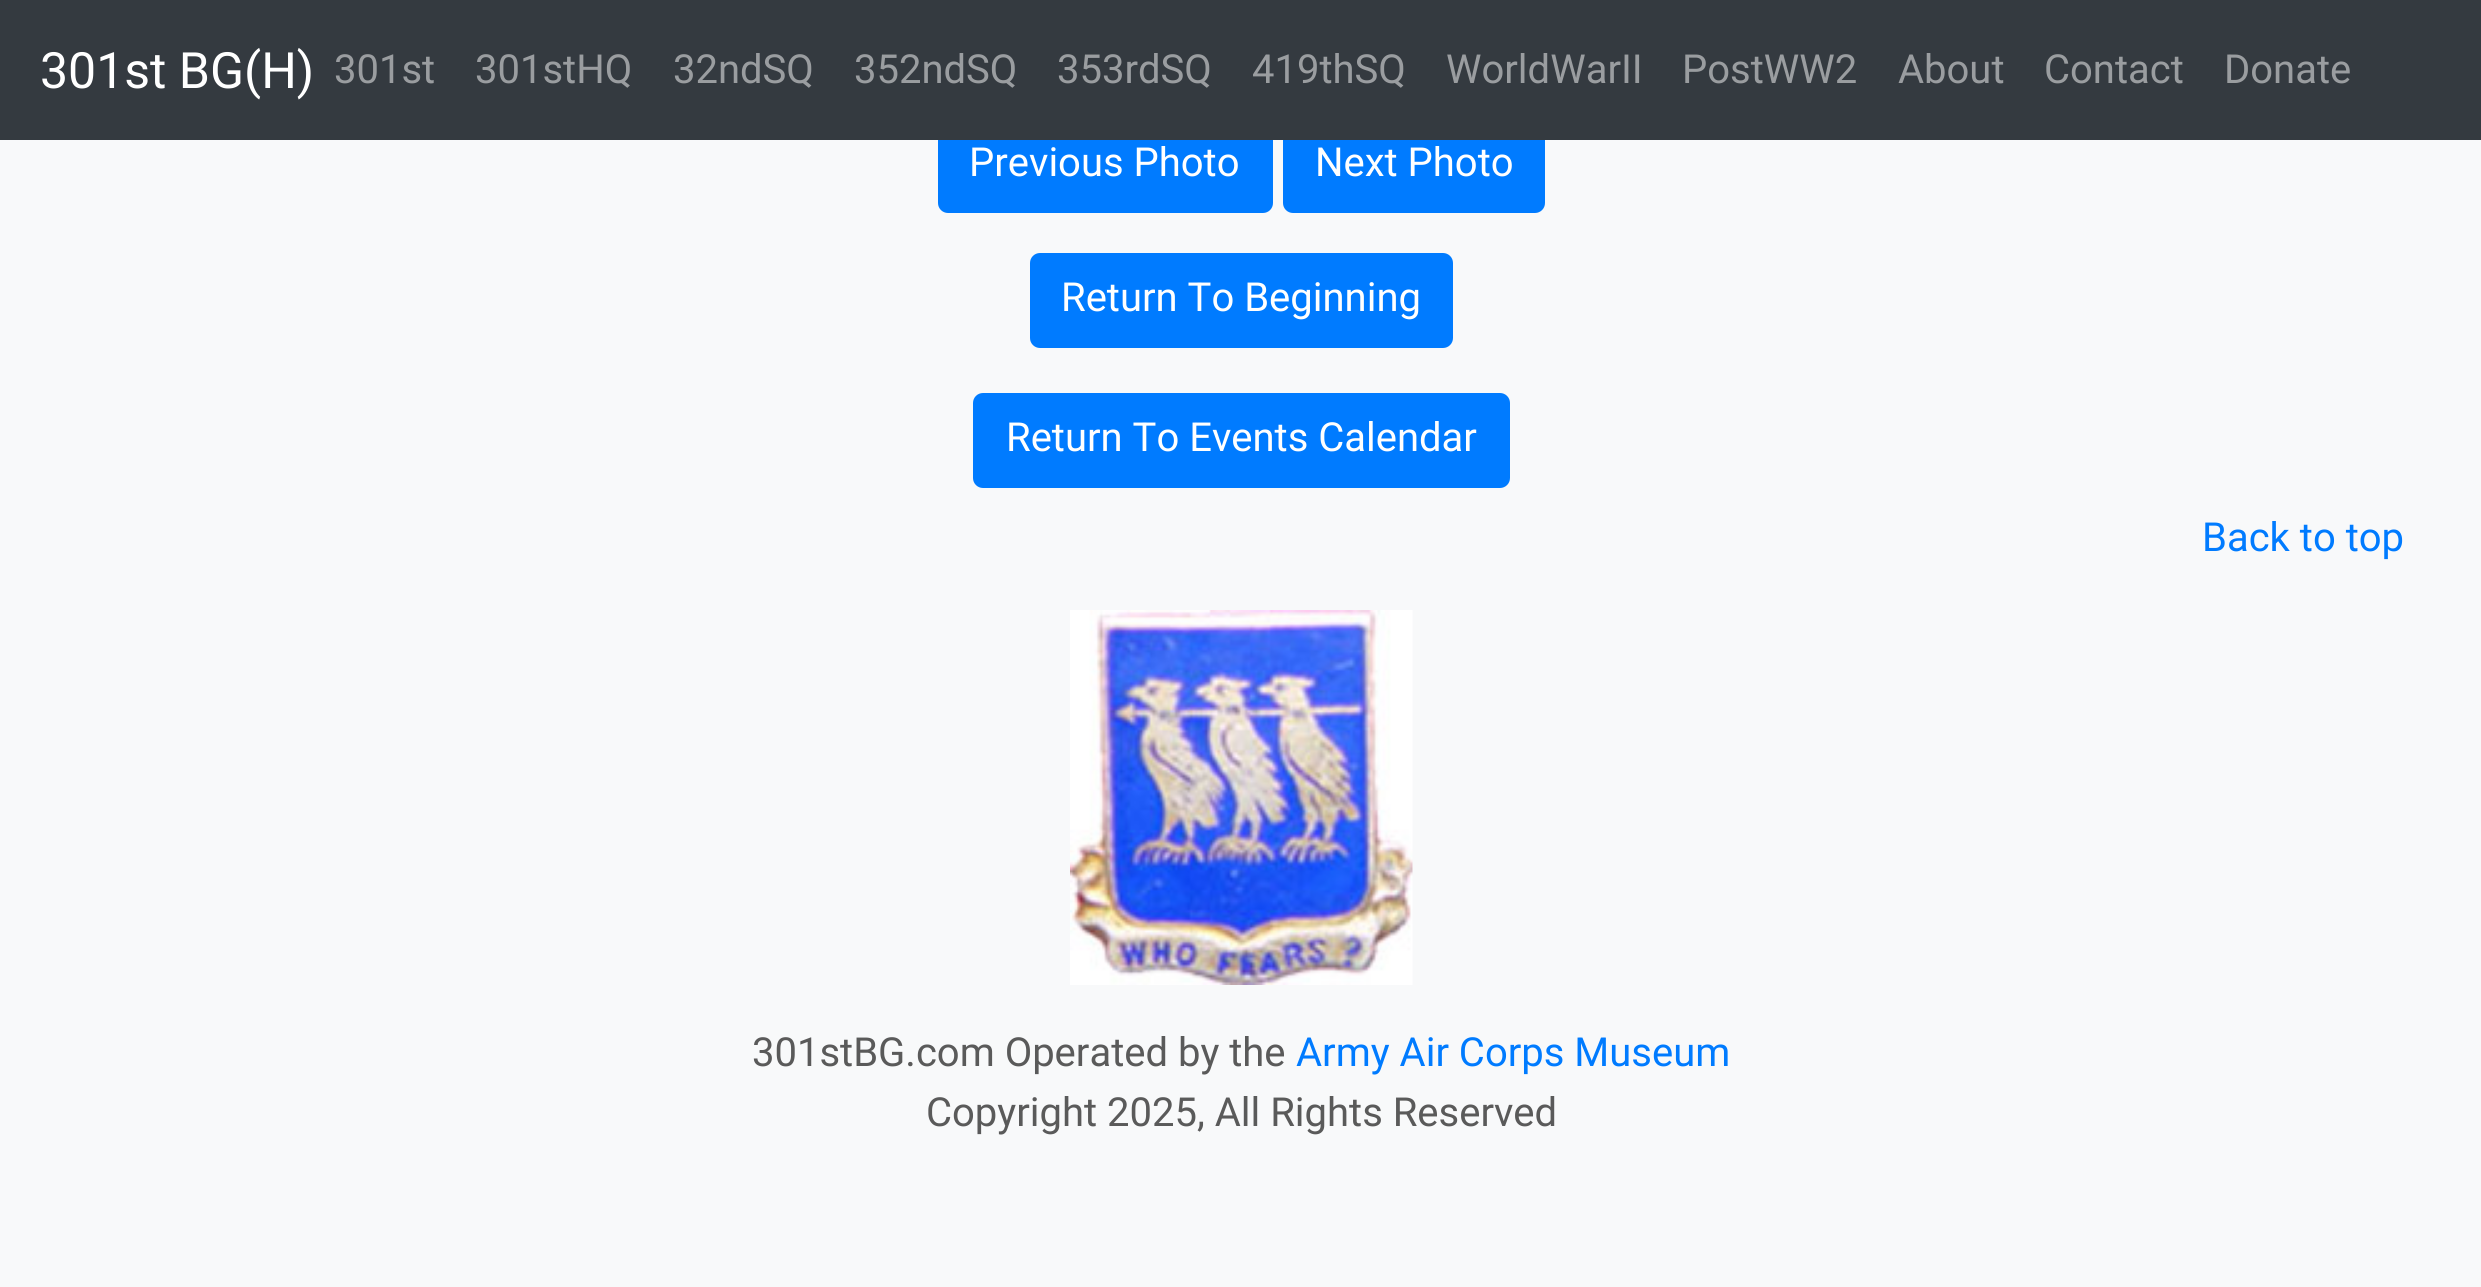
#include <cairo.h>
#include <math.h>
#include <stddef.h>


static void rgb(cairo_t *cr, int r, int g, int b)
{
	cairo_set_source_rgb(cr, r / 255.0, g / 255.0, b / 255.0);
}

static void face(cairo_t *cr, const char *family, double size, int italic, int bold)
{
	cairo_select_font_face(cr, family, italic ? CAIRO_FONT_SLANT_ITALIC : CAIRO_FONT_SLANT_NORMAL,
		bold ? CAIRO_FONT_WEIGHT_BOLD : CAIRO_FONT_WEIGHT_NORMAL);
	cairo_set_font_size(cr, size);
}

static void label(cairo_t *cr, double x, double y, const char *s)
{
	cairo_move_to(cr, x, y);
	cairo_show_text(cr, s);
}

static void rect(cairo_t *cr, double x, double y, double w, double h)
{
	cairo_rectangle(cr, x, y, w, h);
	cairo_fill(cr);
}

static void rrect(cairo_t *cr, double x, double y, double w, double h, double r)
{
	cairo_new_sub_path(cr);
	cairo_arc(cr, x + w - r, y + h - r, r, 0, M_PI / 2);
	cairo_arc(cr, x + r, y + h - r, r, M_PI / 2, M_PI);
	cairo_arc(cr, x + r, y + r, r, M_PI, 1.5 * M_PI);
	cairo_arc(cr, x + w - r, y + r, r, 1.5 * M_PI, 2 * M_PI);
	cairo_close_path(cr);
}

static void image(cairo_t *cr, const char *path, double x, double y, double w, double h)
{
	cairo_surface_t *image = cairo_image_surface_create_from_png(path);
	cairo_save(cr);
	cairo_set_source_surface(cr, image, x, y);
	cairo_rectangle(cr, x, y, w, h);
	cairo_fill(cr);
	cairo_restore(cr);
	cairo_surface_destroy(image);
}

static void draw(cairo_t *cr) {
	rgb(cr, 248, 249, 250);
	cairo_paint(cr);
	rgb(cr, 0, 123, 255);
	rrect(cr, 939.5, 119.5, 332, 92, 8.5);
	cairo_fill_preserve(cr);
	cairo_set_line_width(cr, 3);
	cairo_stroke(cr);
	rrect(cr, 1284.5, 119.5, 259, 92, 8.5);
	cairo_fill_preserve(cr);
	cairo_stroke(cr);
	rgb(cr, 52, 58, 64);
	rect(cr, 0, 0, 2481, 140);
	face(cr, "Roboto", 50, 0, 0);
	rgb(cr, 255, 255, 255);
	label(cr, 40, 88, "301st BG(H)");
	face(cr, "Roboto", 40, 0, 0);
	rgb(cr, 154, 157, 160);
	label(cr, 334, 83, "301st");
	label(cr, 475, 83, "301stHQ");
	label(cr, 673, 83, "32ndSQ");
	label(cr, 854, 83, "352ndSQ");
	label(cr, 1057, 83, "353rdSQ");
	label(cr, 1252, 83, "419thSQ");
	label(cr, 1446, 83, "WorldWarII");
	label(cr, 1682, 83, "PostWW2");
	label(cr, 1898, 83, "About");
	label(cr, 2044, 83, "Contact");
	label(cr, 2224, 83, "Donate");
	rgb(cr, 255, 255, 255);
	label(cr, 969, 176, "Previous Photo");
	label(cr, 1315, 176, "Next Photo");
	rgb(cr, 0, 123, 255);
	rrect(cr, 1031.5, 254.5, 420, 92, 8.5);
	cairo_fill_preserve(cr);
	cairo_stroke(cr);
	rgb(cr, 255, 255, 255);
	label(cr, 1061, 311, "Return To Beginning");
	rgb(cr, 0, 123, 255);
	rrect(cr, 974.5, 394.5, 534, 92, 8.5);
	cairo_fill_preserve(cr);
	cairo_stroke(cr);
	rgb(cr, 255, 255, 255);
	label(cr, 1006, 451, "Return To Events Calendar");
	rgb(cr, 0, 123, 255);
	label(cr, 2202, 551, "Back to top");
	image(cr, "image0.png", 1070, 610, 343, 375);
	rgb(cr, 90, 90, 90);
	label(cr, 752, 1066, "301stBG.com Operated by the");
	rgb(cr, 0, 123, 255);
	label(cr, 1296, 1066, "Army Air Corps Museum");
	rgb(cr, 90, 90, 90);
	label(cr, 926, 1126, "Copyright 2025, All Rights Reserved");
}

int main(void) {
	cairo_surface_t *surface = cairo_image_surface_create(CAIRO_FORMAT_RGB24, 2481, 1287);
	cairo_t *cr = cairo_create(surface);
	cairo_font_options_t *options = cairo_font_options_create();
	cairo_font_options_set_hint_metrics(options, CAIRO_HINT_METRICS_OFF);
	cairo_font_options_set_hint_style(options, CAIRO_HINT_STYLE_NONE);
	cairo_set_font_options(cr, options);
	cairo_set_miter_limit(cr, 4);
	draw(cr);
	cairo_surface_write_to_png(surface, "render.png");
	cairo_font_options_destroy(options);
	cairo_destroy(cr);
	cairo_surface_destroy(surface);
	return 0;
}
